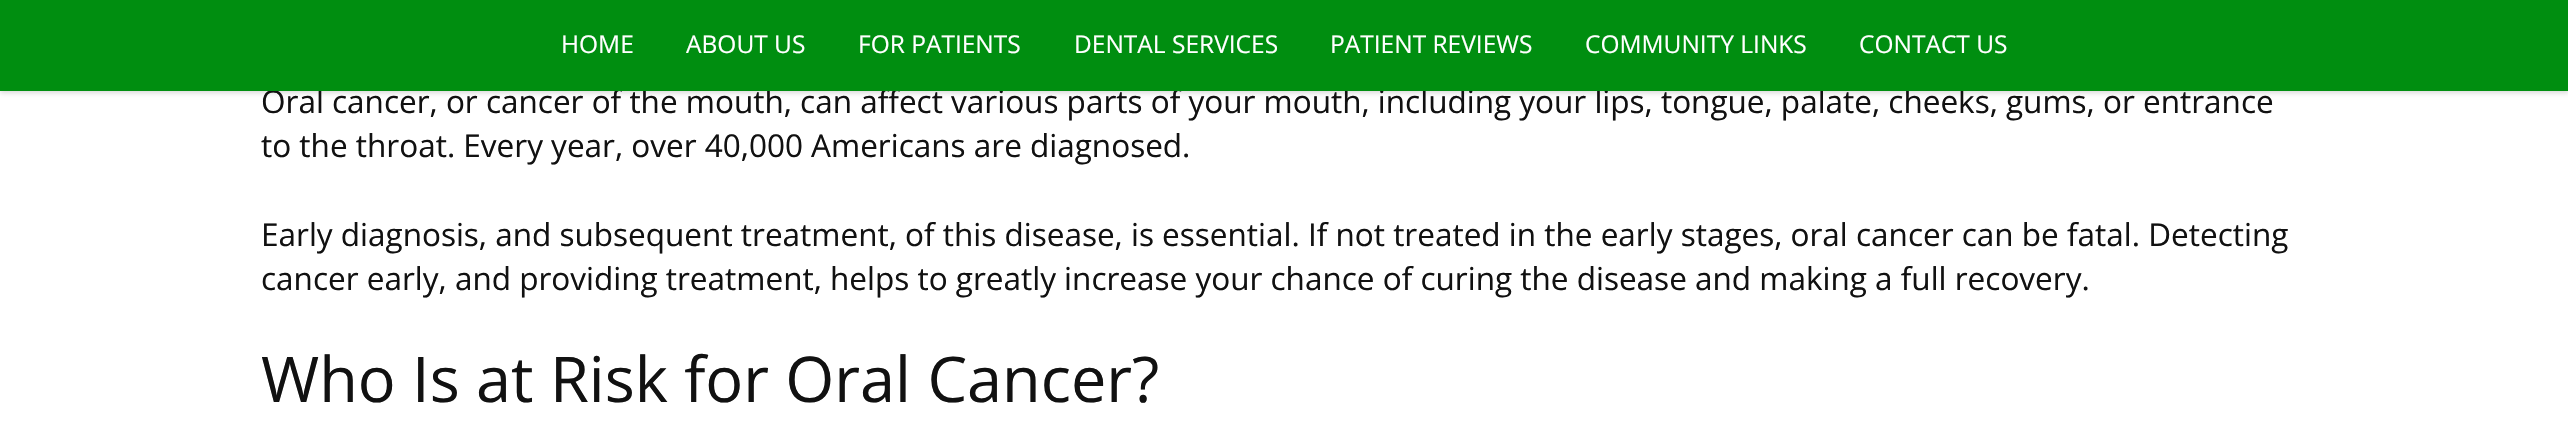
void draw(SkCanvas* c) {
SkPaint p;
p.setAntiAlias(true);
auto F=[&](const char* family, int weight, float size, bool italic = false){SkFontStyle style(weight, SkFontStyle::kNormal_Width,italic ? SkFontStyle::kItalic_Slant : SkFontStyle::kUpright_Slant);SkFont result(fontMgr->matchFamilyStyle(family, style), size);result.setSubpixel(true);return result;};
auto T=[&](const char* s, float x, float y, const SkFont& font){c->drawString(s, x, y, font, p);};
auto R=[&](float x, float y, float w, float h){c->drawRect(SkRect::MakeXYWH(x, y, w, h), p);};
c->clear(0xffffffff);
p.setColor(0x26000000);
p.setMaskFilter(SkMaskFilter::MakeBlur(kNormal_SkBlurStyle, 2.5));
c->drawRect(SkRect::MakeXYWH(0,2,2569,91),p);
p.setMaskFilter(nullptr);
auto f1 = F("Open Sans",400,31.5);
p.setColor(0xff111111);
T("Oral cancer, or cancer of the mouth, can affect various parts of your mouth, including your lips, tongue, palate, cheeks, gums, or entrance",261,113,f1);
p.setColor(0xff008e10);
R(0,0,2568,91);
auto f2 = F("Open Sans",400,24.5);
p.setColor(0xffffffff);
T("HOME",561,53,f2);
T("ABOUT US",686,53,f2);
T("FOR PATIENTS",858,53,f2);
T("DENTAL SERVICES",1074,53,f2);
T("PATIENT REVIEWS",1330,53,f2);
T("COMMUNITY LINKS",1585,53,f2);
T("CONTACT US",1859,53,f2);
p.setColor(0xff111111);
T("to the throat. Every year, over 40,000 Americans are diagnosed.",261,157,f1);
T("Early diagnosis, and subsequent treatment, of this disease, is essential. If not treated in the early stages, oral cancer can be fatal. Detecting",261,246,f1);
T("cancer early, and providing treatment, helps to greatly increase your chance of curing the disease and making a full recovery.",261,290,f1);
auto f3 = F("Open Sans",400,63);
T("Who Is at Risk for Oral Cancer?",261,402,f3);
}
